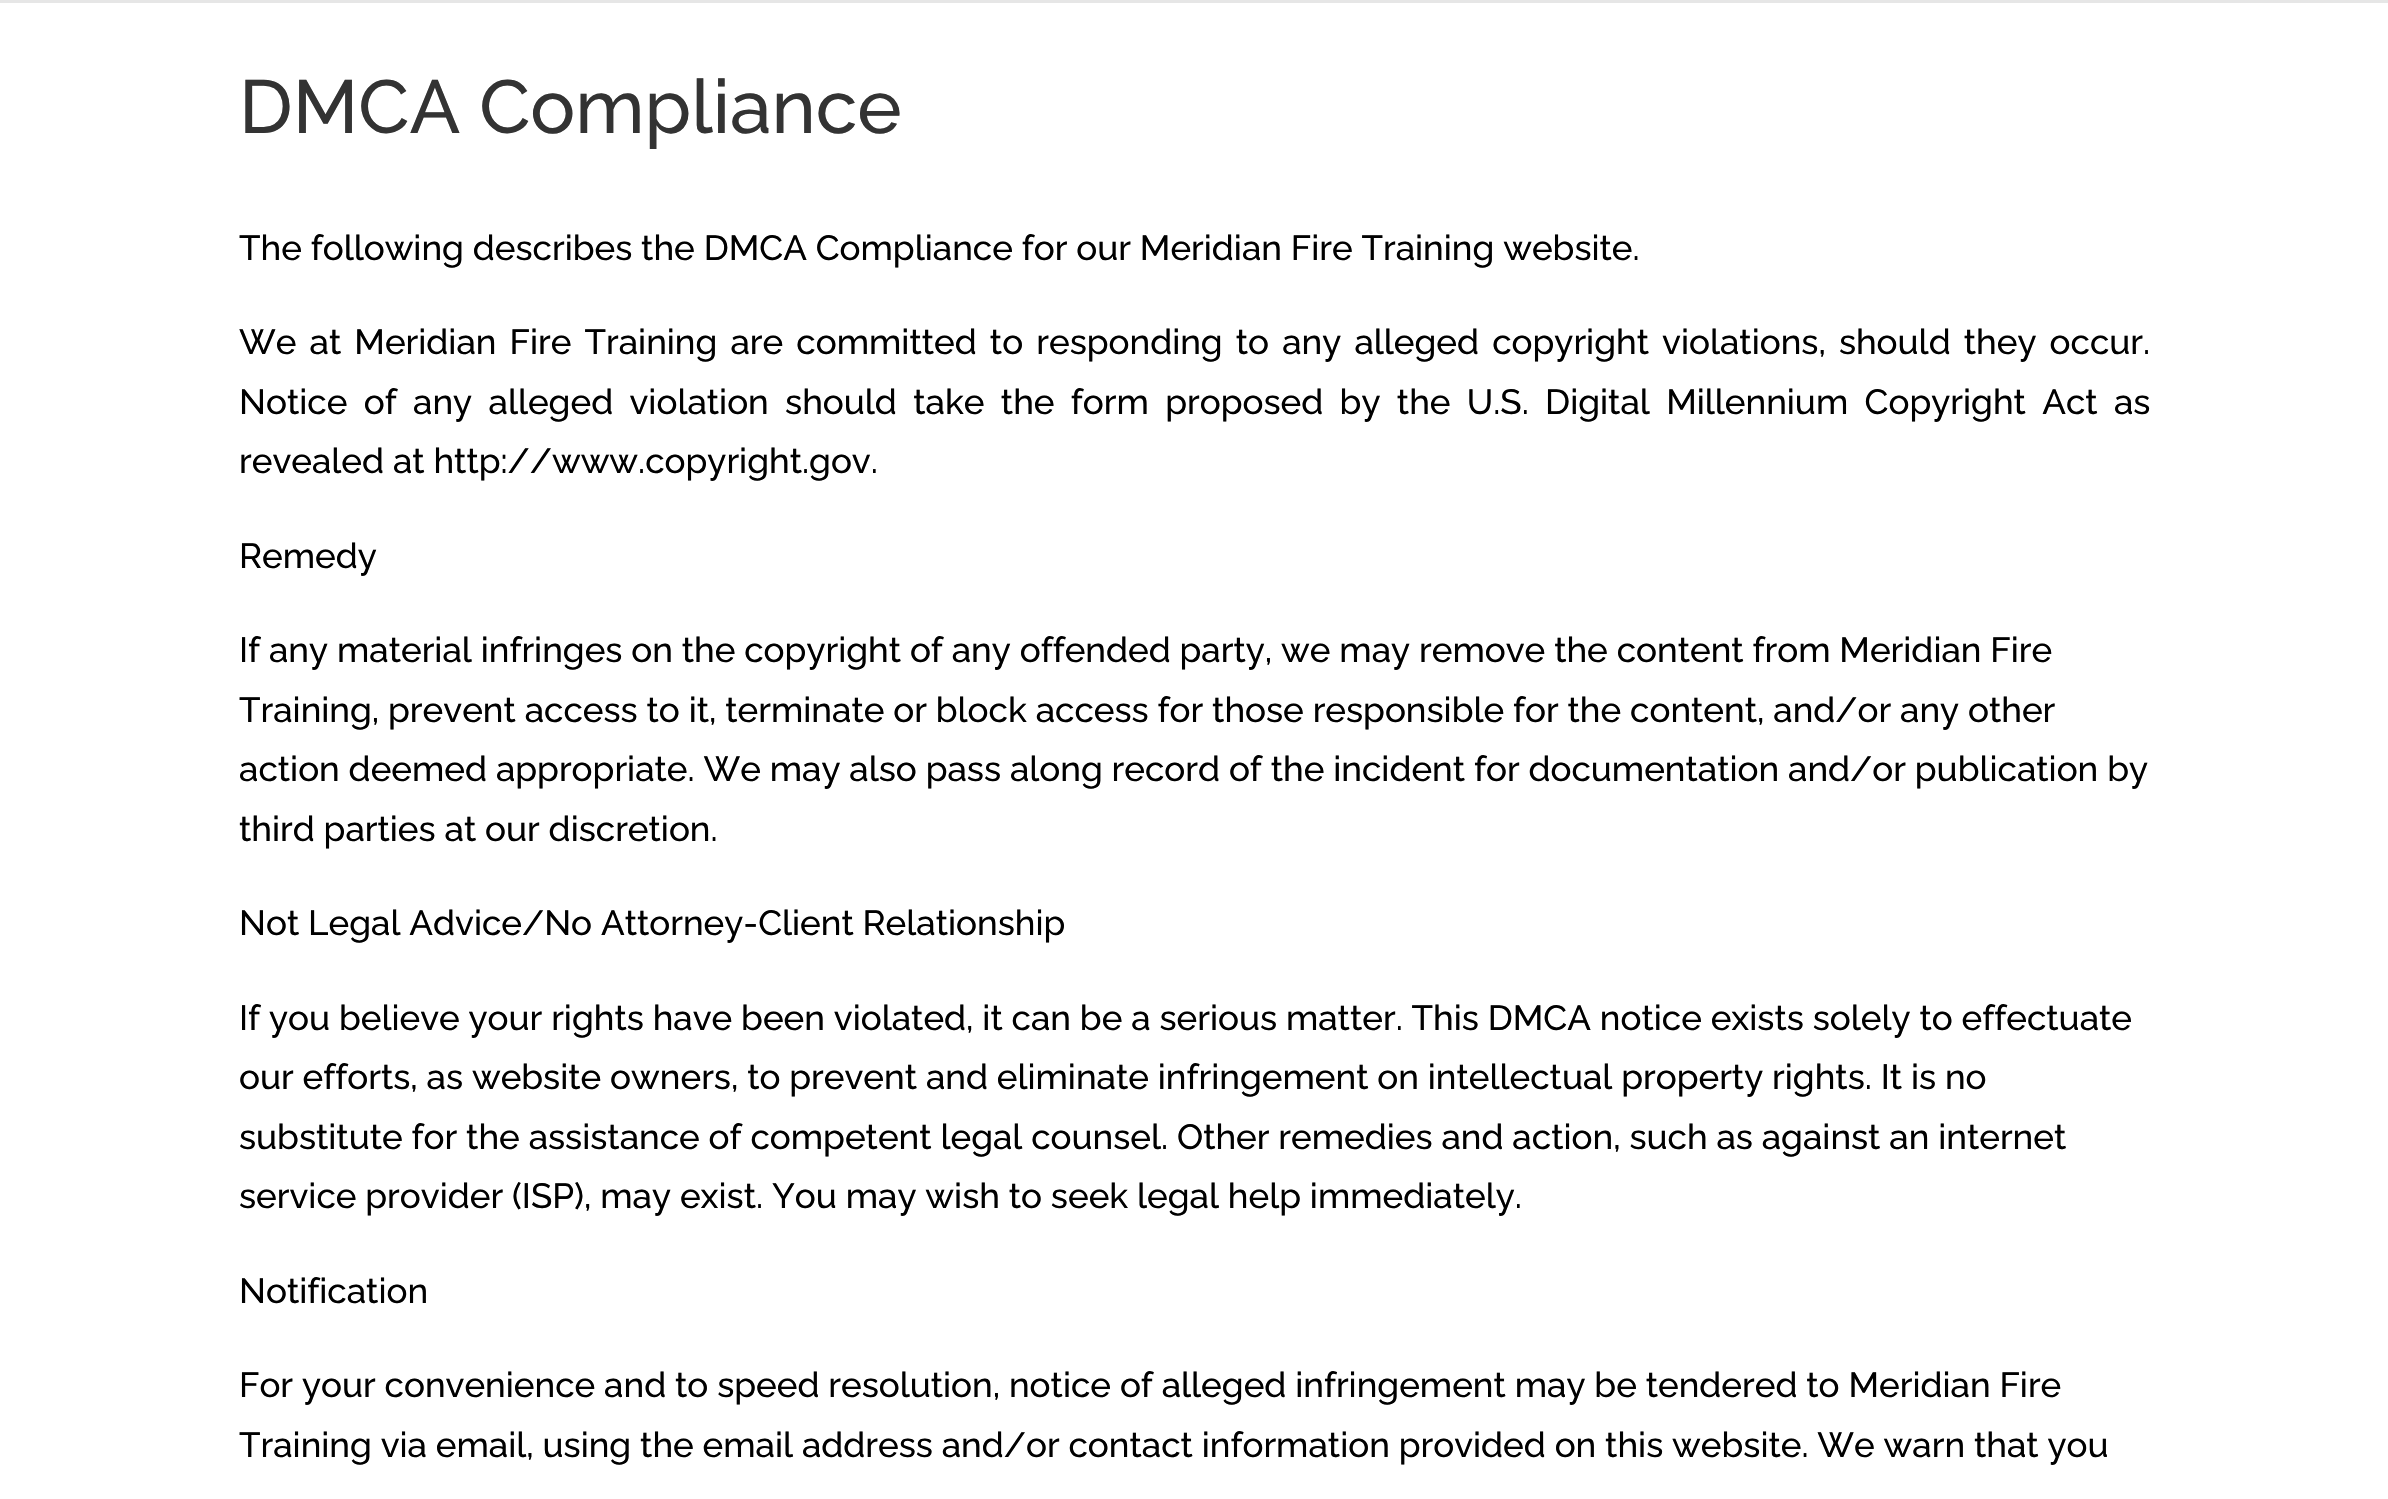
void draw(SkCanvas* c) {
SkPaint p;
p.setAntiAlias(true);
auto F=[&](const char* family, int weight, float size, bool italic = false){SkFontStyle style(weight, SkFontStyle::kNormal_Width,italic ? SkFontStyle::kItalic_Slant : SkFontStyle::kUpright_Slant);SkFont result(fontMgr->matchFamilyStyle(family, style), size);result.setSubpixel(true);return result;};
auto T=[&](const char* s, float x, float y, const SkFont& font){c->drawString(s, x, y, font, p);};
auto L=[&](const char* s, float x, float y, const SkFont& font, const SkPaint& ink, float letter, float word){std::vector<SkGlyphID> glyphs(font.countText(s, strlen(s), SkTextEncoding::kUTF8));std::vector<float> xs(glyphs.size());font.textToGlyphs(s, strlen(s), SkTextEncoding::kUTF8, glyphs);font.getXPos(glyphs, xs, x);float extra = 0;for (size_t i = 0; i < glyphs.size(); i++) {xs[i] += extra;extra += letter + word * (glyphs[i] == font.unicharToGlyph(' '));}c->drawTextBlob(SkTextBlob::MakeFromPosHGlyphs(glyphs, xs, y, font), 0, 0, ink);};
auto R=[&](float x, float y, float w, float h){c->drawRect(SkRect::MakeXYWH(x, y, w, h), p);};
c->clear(0xffffffff);
p.setColor(0xffe6e6e6);
R(0,0,2388,3);
auto f1 = F("Raleway",500,75);
p.setColor(0xff333333);
T("DMCA Compliance",239,133,f1);
auto f2 = F("Raleway",500,35);
p.setColor(0xff000000);
T("The following describes the DMCA Compliance for our Meridian Fire Training website.",239,260,f2);
L("We at Meridian Fire Training are committed to responding to any alleged copyright violations, should they occur.",239,354,f2,p,0,4.25);
L("Notice of any alleged violation should take the form proposed by the U.S. Digital Millennium Copyright Act as",239,414,f2,p,0,7.5);
T("revealed at http://www.copyright.gov.",239,473,f2);
T("Remedy",239,568,f2);
T("If any material infringes on the copyright of any offended party, we may remove the content from Meridian Fire",239,662,f2);
T("Training, prevent access to it, terminate or block access for those responsible for the content, and/or any other",239,722,f2);
T("action deemed appropriate. We may also pass along record of the incident for documentation and/or publication by",239,781,f2);
T("third parties at our discretion.",239,841,f2);
T("Not Legal Advice/No Attorney-Client Relationship",239,935,f2);
T("If you believe your rights have been violated, it can be a serious matter. This DMCA notice exists solely to effectuate",239,1030,f2);
T("our efforts, as website owners, to prevent and eliminate infringement on intellectual property rights. It is no",239,1089,f2);
T("substitute for the assistance of competent legal counsel. Other remedies and action, such as against an internet",239,1149,f2);
T("service provider (ISP), may exist. You may wish to seek legal help immediately.",239,1208,f2);
T("Notification",239,1303,f2);
T("For your convenience and to speed resolution, notice of alleged infringement may be tendered to Meridian Fire",239,1397,f2);
T("Training via email, using the email address and/or contact information provided on this website. We warn that you",239,1457,f2);
}
